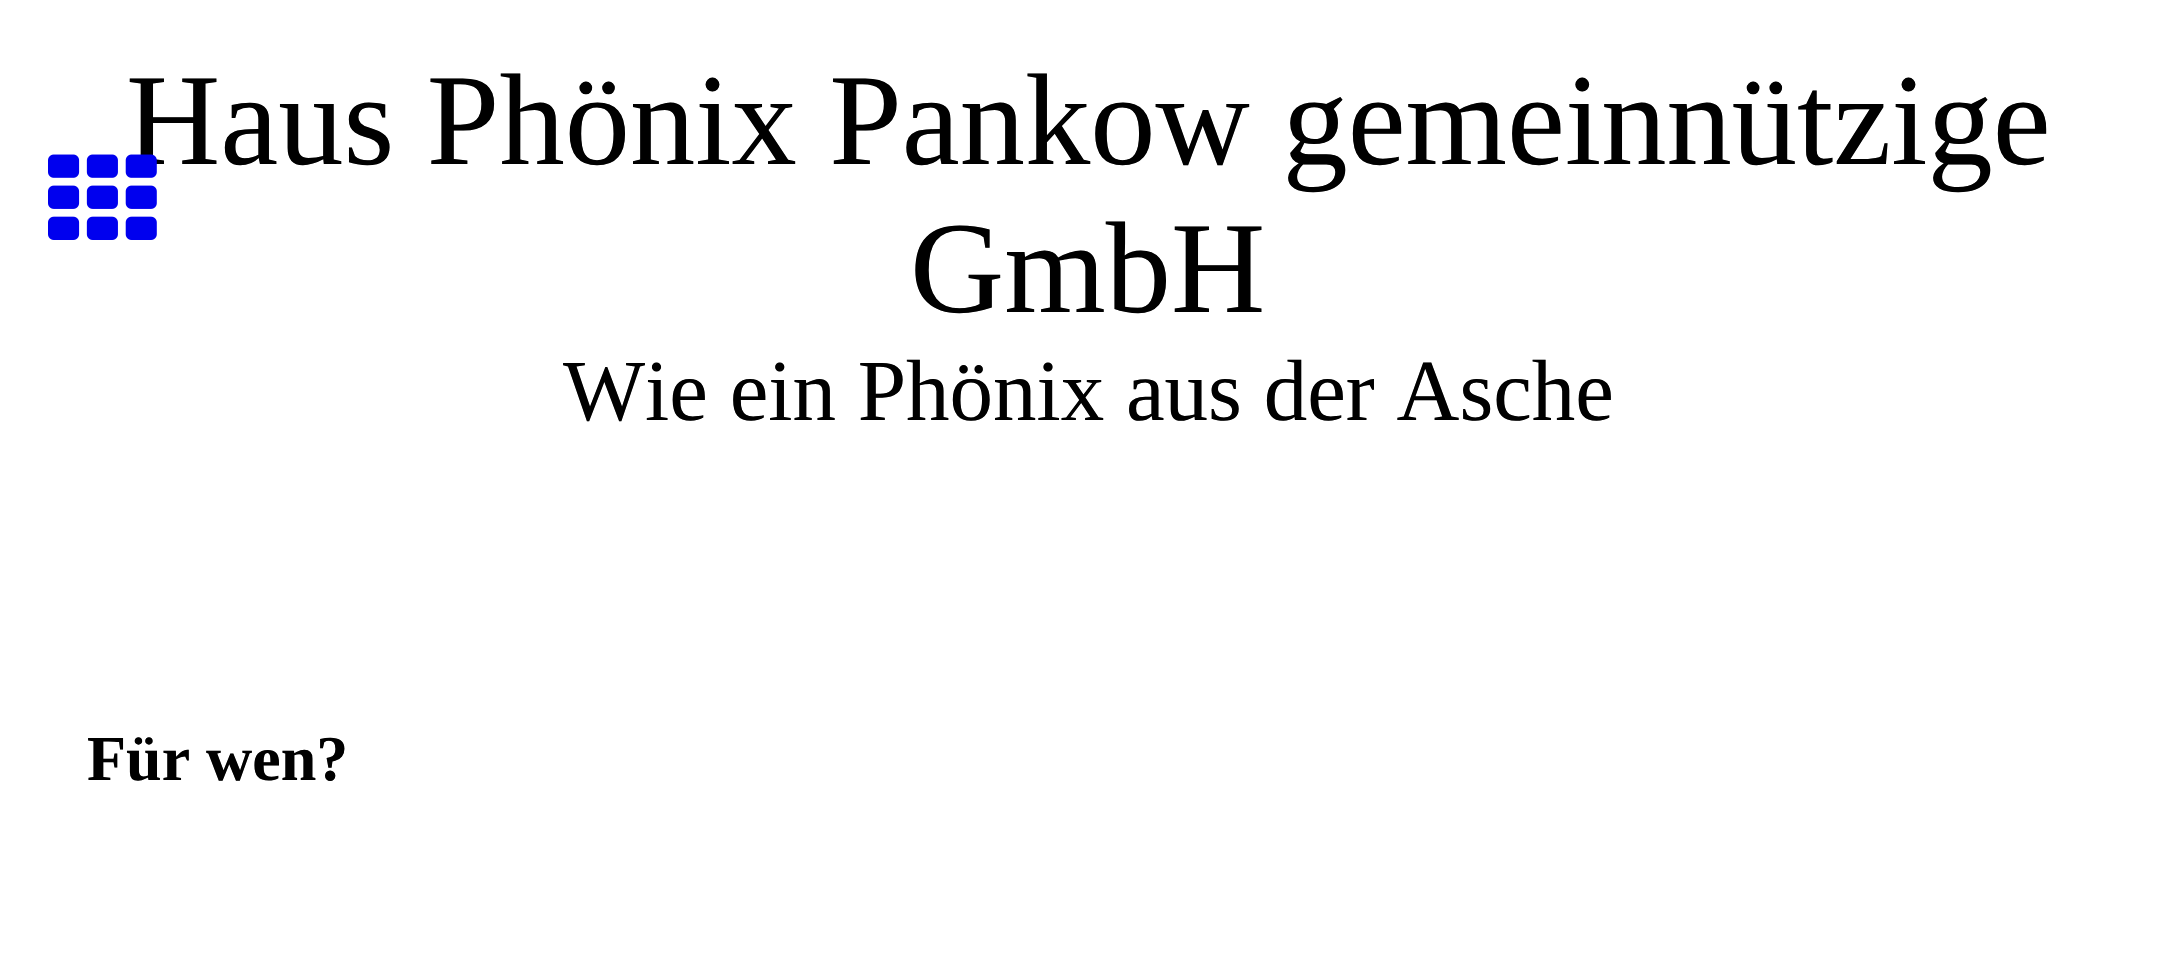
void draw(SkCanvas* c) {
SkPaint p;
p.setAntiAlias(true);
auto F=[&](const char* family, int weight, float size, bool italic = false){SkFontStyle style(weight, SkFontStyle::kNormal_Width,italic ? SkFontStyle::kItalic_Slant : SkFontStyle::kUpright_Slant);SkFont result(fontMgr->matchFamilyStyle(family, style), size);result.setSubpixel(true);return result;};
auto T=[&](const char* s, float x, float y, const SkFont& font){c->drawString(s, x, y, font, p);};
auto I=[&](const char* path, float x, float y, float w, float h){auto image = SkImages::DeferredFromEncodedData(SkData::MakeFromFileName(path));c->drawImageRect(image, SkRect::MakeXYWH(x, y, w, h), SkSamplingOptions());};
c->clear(0xffffffff);
auto f1 = F("Liberation Serif",400,130.5);
p.setColor(0xff000000);
T("Haus Phönix Pankow gemeinnützige",126,164,f1);
I("1.png",48,154,109,86);
T("GmbH",910,312,f1);
auto f2 = F("Liberation Serif",400,87);
T("Wie ein Phönix aus der Asche",563,420,f2);
auto f3 = F("Liberation Serif",700,64);
T("Für wen?",87,780,f3);
}
